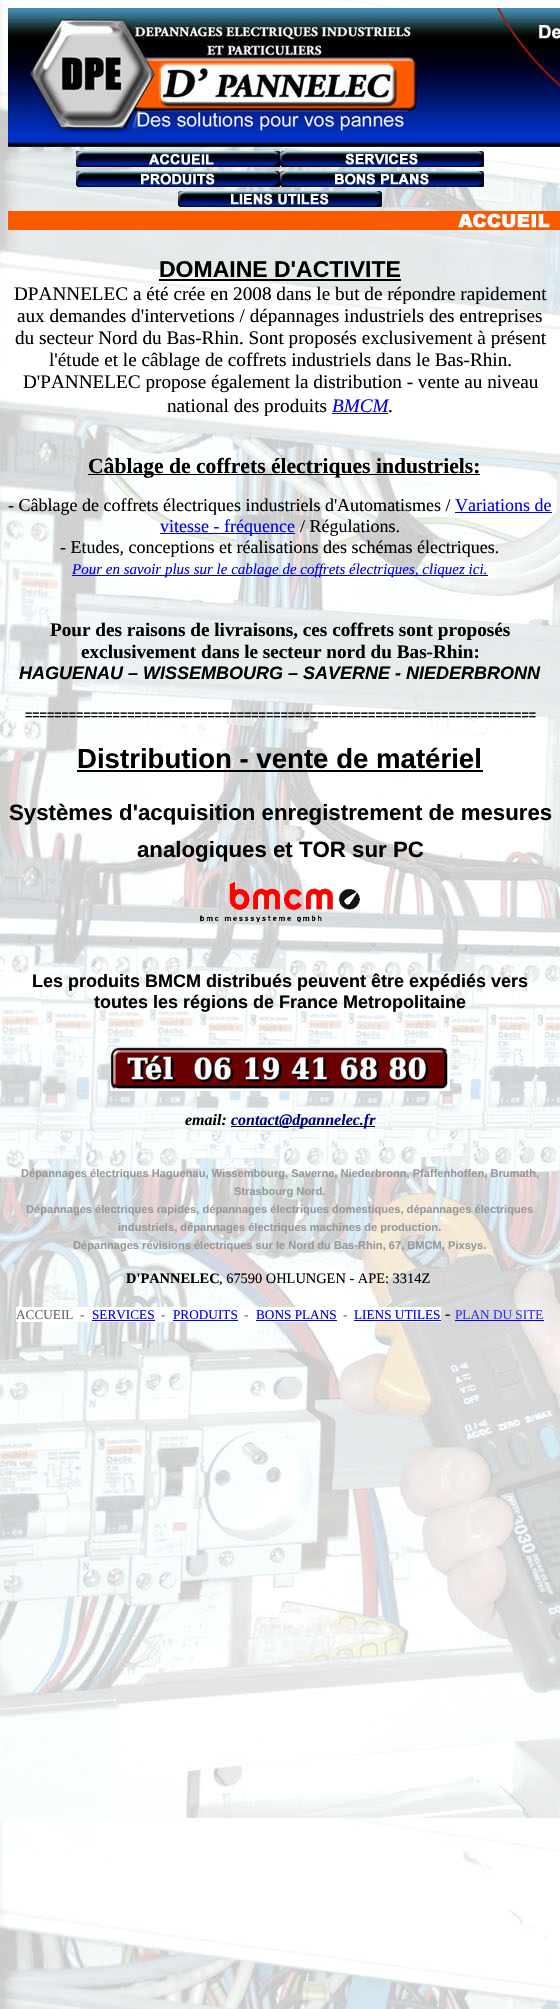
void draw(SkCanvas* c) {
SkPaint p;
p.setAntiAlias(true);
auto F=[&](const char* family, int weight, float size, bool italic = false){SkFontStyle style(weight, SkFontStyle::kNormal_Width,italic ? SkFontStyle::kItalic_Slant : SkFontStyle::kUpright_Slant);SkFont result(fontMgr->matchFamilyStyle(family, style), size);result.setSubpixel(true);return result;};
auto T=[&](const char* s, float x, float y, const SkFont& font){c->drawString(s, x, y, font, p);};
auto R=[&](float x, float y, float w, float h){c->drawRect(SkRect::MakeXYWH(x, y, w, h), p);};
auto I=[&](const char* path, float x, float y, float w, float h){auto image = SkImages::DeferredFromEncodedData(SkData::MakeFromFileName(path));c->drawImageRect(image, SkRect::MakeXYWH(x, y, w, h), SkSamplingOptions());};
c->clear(0xffffffff);
I("1.png",0,0,560,2009);
I("2.png",8,8,552,139);
I("3.png",76,151,204,16);
I("4.png",280,151,204,16);
I("5.png",76,171,204,16);
I("6.png",280,171,204,16);
I("7.png",178,191,204,16);
I("8.png",8,211,552,19);
auto f1 = F("Liberation Sans",700,23);
p.setColor(0xff000000);
T("DOMAINE D'ACTIVITE",159,277,f1);
R(159,279,242,2);
auto f2 = F("Liberation Serif",400,19.2);
T("DPANNELEC a été crée en 2008 dans le but de répondre rapidement",14,300,f2);
T("aux demandes d'intervetions / dépannages industriels des entreprises",17,322,f2);
T("du secteur Nord du Bas-Rhin. Sont proposés exclusivement à présent",15,344,f2);
T("l'étude et le câblage de coffrets industriels dans le Bas-Rhin.",49,366,f2);
T("D'PANNELEC propose également la distribution - vente au niveau",23,388,f2);
T("national des produits",167,412,f2);
auto f3 = F("Liberation Serif",400,19.2,true);
p.setColor(0xff0000ee);
T("BMCM",332,412,f3);
p.setColor(0xff000000);
T(".",388,412,f2);
p.setColor(0xff0000ee);
R(332,413,56,1);
p.setColor(0xff000000);
R(88,474,392,1);
auto f4 = F("Liberation Serif",700,21.6);
T("Câblage de coffrets électriques industriels:",88,473,f4);
auto f5 = F("Liberation Serif",400,18);
T("- Câblage de coffrets électriques industriels d'Automatismes /",8,511,f5);
p.setColor(0xff0000ee);
T("Variations de",455,511,f5);
R(455,512,97,1);
R(160,533,135,1);
T("vitesse - fréquence",160,532,f5);
p.setColor(0xff000000);
T("/ Régulations.",300,532,f5);
T("- Etudes, conceptions et réalisations des schémas électriques.",60,553,f5);
p.setColor(0xff0000ee);
R(72,575,416,1);
auto f6 = F("Liberation Serif",400,15,true);
T("Pour en savoir plus sur le cablage de coffrets électriques, cliquez ici.",72,574,f6);
auto f7 = F("Liberation Serif",700,19.2);
p.setColor(0xff000000);
T("Pour des raisons de livraisons, ces coffrets sont proposés",50,636,f7);
T("exclusivement dans le secteur nord du Bas-Rhin:",81,658,f7);
auto f8 = F("Liberation Sans",700,18,true);
T("HAGUENAU – WISSEMBOURG – SAVERNE - NIEDERBRONN",19,679,f8);
auto f9 = F("Liberation Sans",700,12.5);
T("======================================================================",25,719,f9);
auto f10 = F("Liberation Sans",700,27.6);
T("Distribution - vente de matériel",77,768,f10);
R(77,770,406,2);
auto f11 = F("Liberation Sans",700,22.25);
T("Systèmes d'acquisition enregistrement de mesures",9,820,f11);
T("analogiques et TOR sur PC",137,857,f11);
I("9.png",200,881,160,42);
auto f12 = F("Liberation Sans",700,18);
T("Les produits BMCM distribués peuvent être expédiés vers",32,987,f12);
T("toutes les régions de France Metropolitaine",94,1008,f12);
I("10.png",110,1047,340,44);
auto f13 = F("Liberation Serif",700,16,true);
T("email:",185,1125,f13);
R(231,1126,144,1);
p.setColor(0xff000080);
T("contact@dpannelec.fr",231,1125,f13);
auto f14 = F("Liberation Sans",700,11.1);
p.setColor(0xff979899);
T("Dépannages électriques Haguenau, Wissembourg, Saverne, Niederbronn, Pfaffenhoffen, Brumath,",21,1177,f14);
T("Strasbourg Nord.",234,1195,f14);
T("Dépannages électriques rapides, dépannages électriques domestiques, dépannages électriques",26,1213,f14);
T("industriels, dépannages électriques machines de production.",118,1231,f14);
T("Dépannages révisions électriques sur le Nord du Bas-Rhin, 67, BMCM, Pixsys.",73,1249,f14);
auto f15 = F("Liberation Serif",700,14.4);
p.setColor(0xff000000);
T("D'PANNELEC",126,1283,f15);
auto f16 = F("Liberation Serif",400,14.4);
T(", 67590 OHLUNGEN - APE: 3314Z",219,1283,f16);
p.setColor(0xffffffff);
R(16,1307,296,15);
auto f17 = F("Liberation Serif",400,13.25);
p.setColor(0xff666666);
T("ACCUEIL  -",16,1319,f17);
p.setColor(0xff0000ee);
T("SERVICES",92,1319,f17);
R(92,1320,63,1);
p.setColor(0xff666666);
T("-",161,1319,f17);
p.setColor(0xff0000ee);
T("PRODUITS",173,1319,f17);
R(173,1320,65,1);
p.setColor(0xff666666);
T("-",244,1319,f17);
p.setColor(0xff0000ee);
T("BONS PLANS",256,1319,f17);
R(256,1320,81,1);
p.setColor(0xff666666);
T("-",343,1319,f17);
p.setColor(0xffffffff);
R(369,1307,72,15);
p.setColor(0xff0000ee);
T("LIENS UTILES",354,1319,f17);
R(354,1320,87,1);
auto f18 = F("Liberation Serif",400,16);
p.setColor(0xff000000);
T("-",445,1319,f18);
p.setColor(0xff3333ff);
T("PLAN DU SITE",455,1319,f17);
p.setColor(0xff0000ee);
R(455,1320,89,1);
}
